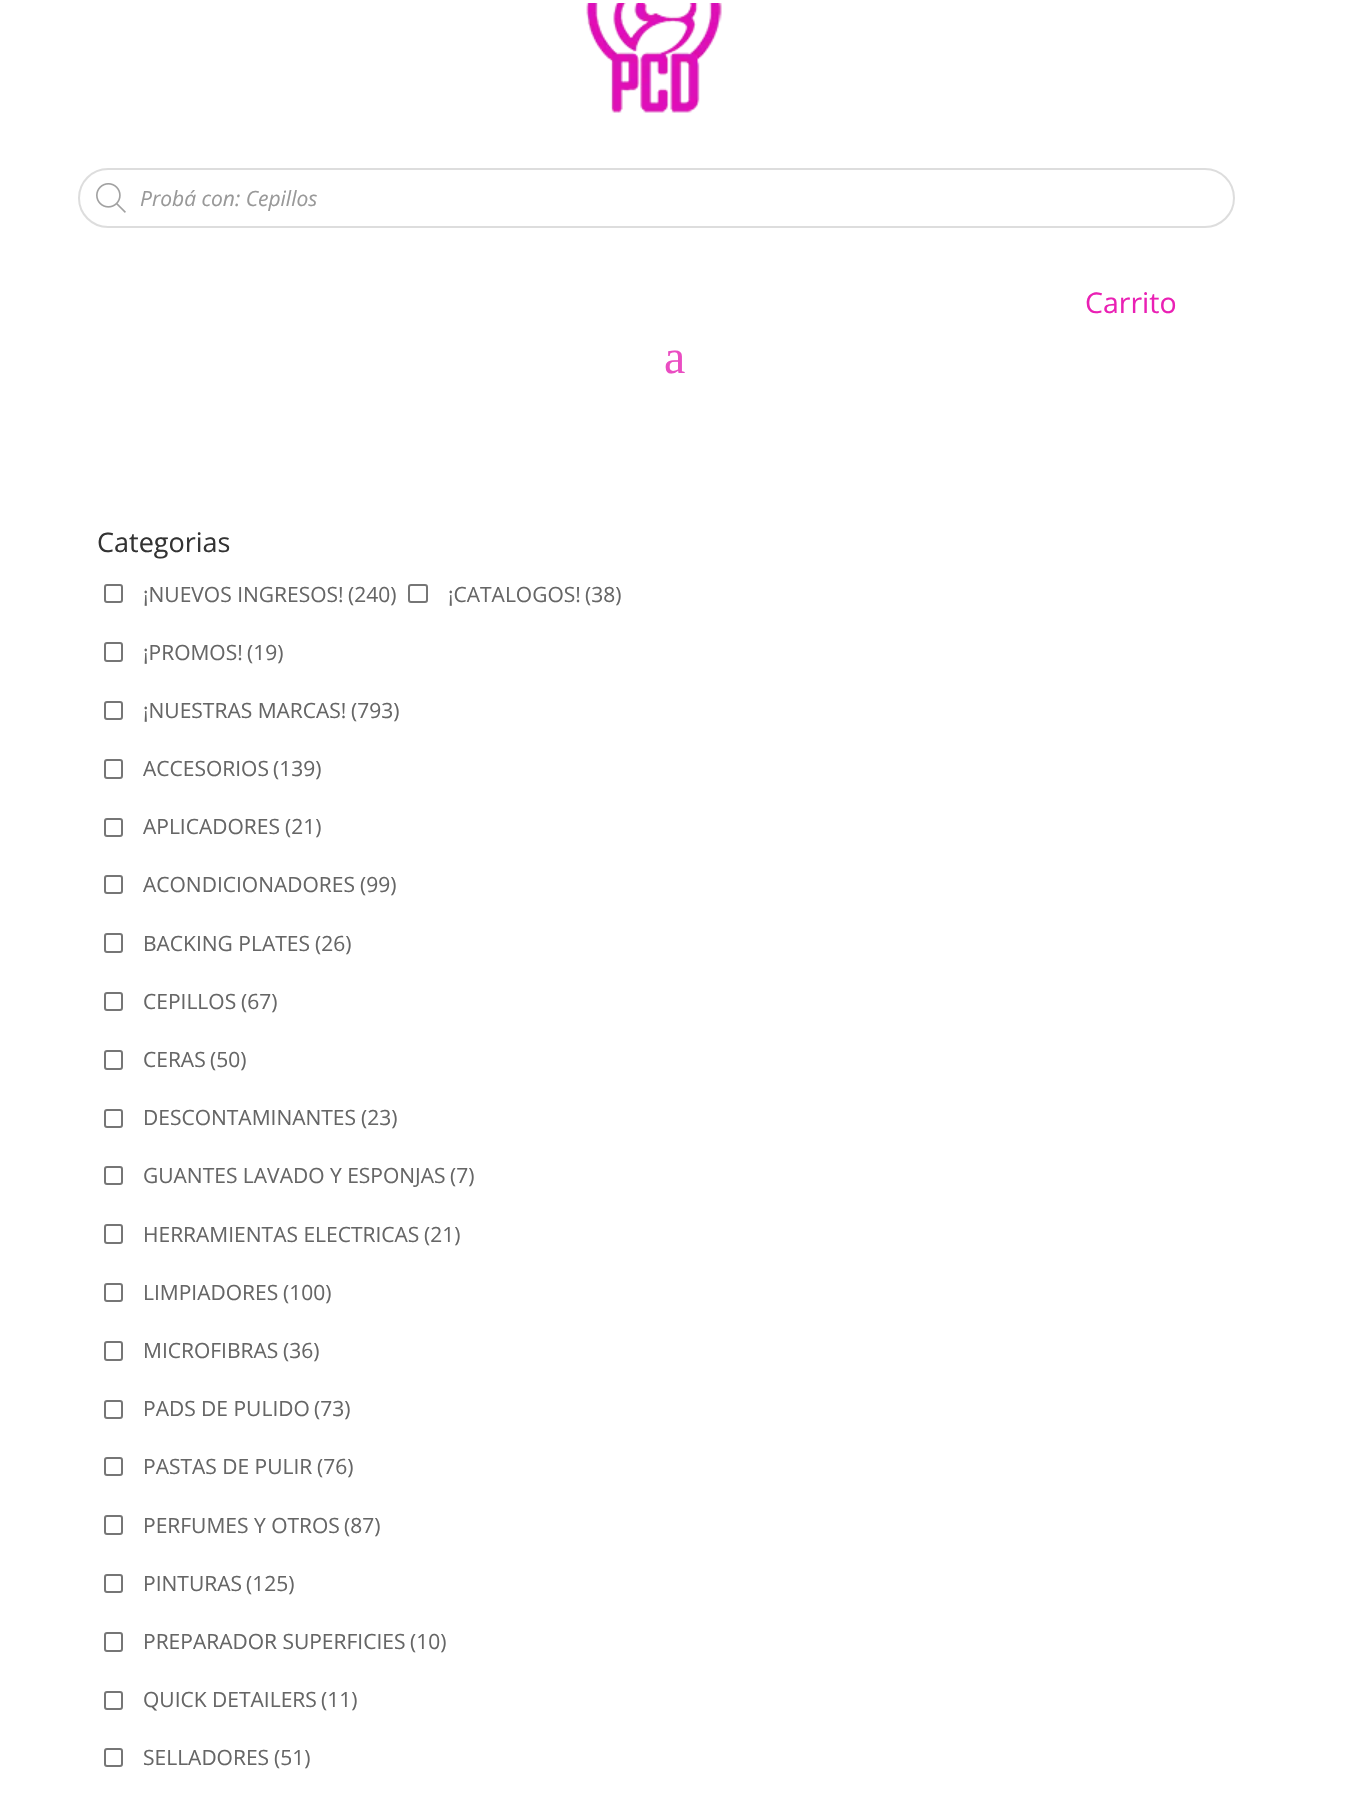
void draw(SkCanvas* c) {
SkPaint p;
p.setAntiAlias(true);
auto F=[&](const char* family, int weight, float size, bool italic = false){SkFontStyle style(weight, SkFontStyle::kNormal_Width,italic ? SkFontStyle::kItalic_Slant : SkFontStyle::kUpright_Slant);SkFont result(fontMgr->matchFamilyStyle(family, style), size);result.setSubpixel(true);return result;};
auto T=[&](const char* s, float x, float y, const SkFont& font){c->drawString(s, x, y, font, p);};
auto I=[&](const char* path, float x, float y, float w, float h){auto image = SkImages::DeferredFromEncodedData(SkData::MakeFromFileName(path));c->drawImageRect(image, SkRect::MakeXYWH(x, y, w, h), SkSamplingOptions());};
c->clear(0xffffffff);
I("1.png",586,3,136,110);
p.setStroke(true);
p.setStrokeWidth(2);
p.setColor(0xffdddddd);
c->drawRoundRect(SkRect::MakeXYWH(79,169,1155,58),29,29,p);
I("2.png",96,183,30,30);
auto f1 = F("Open Sans",400,21,true);
p.setStroke(false);
p.setColor(0xff999999);
T("Probá con: Cepillos",140,206,f1);
auto f2 = F("Open Sans",400,28.5);
p.setColor(0xffea20b4);
T("Carrito",1085,313,f2);
auto f3 = F("Liberation Serif",400,48);
p.setColor(0xffea4dc2);
T("a",664,373,f3);
auto f4 = F("Open Sans",400,27);
p.setColor(0xff333333);
T("Categorias",97,552,f4);
p.setStroke(true);
p.setColor(0xff767676);
c->drawRoundRect(SkRect::MakeXYWH(105,585,17,17),2,2,p);
auto f5 = F("Open Sans",400,21);
p.setStroke(false);
p.setColor(0xff666666);
T("¡NUEVOS INGRESOS!",143,602,f5);
T("(240)",348,602,f5);
p.setStroke(true);
p.setColor(0xff767676);
c->drawRoundRect(SkRect::MakeXYWH(409,585,18,17),2,2,p);
p.setStroke(false);
p.setColor(0xff666666);
T("¡CATALOGOS!",448,602,f5);
T("(38)",585,602,f5);
p.setStroke(true);
p.setColor(0xff767676);
c->drawRoundRect(SkRect::MakeXYWH(105,643,17,18),2,2,p);
p.setStroke(false);
p.setColor(0xff666666);
T("¡PROMOS!",143,660,f5);
T("(19)",247,660,f5);
p.setStroke(true);
p.setColor(0xff767676);
c->drawRoundRect(SkRect::MakeXYWH(105,702,17,17),2,2,p);
p.setStroke(false);
p.setColor(0xff666666);
T("¡NUESTRAS MARCAS!",143,718,f5);
T("(793)",351,718,f5);
p.setStroke(true);
p.setColor(0xff767676);
c->drawRoundRect(SkRect::MakeXYWH(105,760,17,18),2,2,p);
p.setStroke(false);
p.setColor(0xff666666);
T("ACCESORIOS",143,776,f5);
T("(139)",273,776,f5);
p.setStroke(true);
p.setColor(0xff767676);
c->drawRoundRect(SkRect::MakeXYWH(105,819,17,17),2,2,p);
p.setStroke(false);
p.setColor(0xff666666);
T("APLICADORES",143,834,f5);
T("(21)",285,834,f5);
p.setStroke(true);
p.setColor(0xff767676);
c->drawRoundRect(SkRect::MakeXYWH(105,876,17,17),2,2,p);
p.setStroke(false);
p.setColor(0xff666666);
T("ACONDICIONADORES",143,892,f5);
T("(99)",360,892,f5);
p.setStroke(true);
p.setColor(0xff767676);
c->drawRoundRect(SkRect::MakeXYWH(105,934,17,18),2,2,p);
p.setStroke(false);
p.setColor(0xff666666);
T("BACKING PLATES",143,951,f5);
T("(26)",315,951,f5);
p.setStroke(true);
p.setColor(0xff767676);
c->drawRoundRect(SkRect::MakeXYWH(105,993,17,17),2,2,p);
p.setStroke(false);
p.setColor(0xff666666);
T("CEPILLOS",143,1009,f5);
T("(67)",241,1009,f5);
p.setStroke(true);
p.setColor(0xff767676);
c->drawRoundRect(SkRect::MakeXYWH(105,1051,17,18),2,2,p);
p.setStroke(false);
p.setColor(0xff666666);
T("CERAS",143,1067,f5);
T("(50)",210,1067,f5);
p.setStroke(true);
p.setColor(0xff767676);
c->drawRoundRect(SkRect::MakeXYWH(105,1110,17,17),2,2,p);
p.setStroke(false);
p.setColor(0xff666666);
T("DESCONTAMINANTES",143,1125,f5);
T("(23)",361,1125,f5);
p.setStroke(true);
p.setColor(0xff767676);
c->drawRoundRect(SkRect::MakeXYWH(105,1167,17,17),2,2,p);
p.setStroke(false);
p.setColor(0xff666666);
T("GUANTES LAVADO Y ESPONJAS",143,1183,f5);
T("(7)",450,1183,f5);
p.setStroke(true);
p.setColor(0xff767676);
c->drawRoundRect(SkRect::MakeXYWH(105,1225,17,18),2,2,p);
p.setStroke(false);
p.setColor(0xff666666);
T("HERRAMIENTAS ELECTRICAS",143,1242,f5);
T("(21)",424,1242,f5);
p.setStroke(true);
p.setColor(0xff767676);
c->drawRoundRect(SkRect::MakeXYWH(105,1284,17,17),2,2,p);
p.setStroke(false);
p.setColor(0xff666666);
T("LIMPIADORES",143,1300,f5);
T("(100)",283,1300,f5);
p.setStroke(true);
p.setColor(0xff767676);
c->drawRoundRect(SkRect::MakeXYWH(105,1342,17,18),2,2,p);
p.setStroke(false);
p.setColor(0xff666666);
T("MICROFIBRAS",143,1358,f5);
T("(36)",283,1358,f5);
p.setStroke(true);
p.setColor(0xff767676);
c->drawRoundRect(SkRect::MakeXYWH(105,1401,17,17),2,2,p);
p.setStroke(false);
p.setColor(0xff666666);
T("PADS DE PULIDO",143,1416,f5);
T("(73)",314,1416,f5);
p.setStroke(true);
p.setColor(0xff767676);
c->drawRoundRect(SkRect::MakeXYWH(105,1458,17,17),2,2,p);
p.setStroke(false);
p.setColor(0xff666666);
T("PASTAS DE PULIR",143,1474,f5);
T("(76)",317,1474,f5);
p.setStroke(true);
p.setColor(0xff767676);
c->drawRoundRect(SkRect::MakeXYWH(105,1516,17,18),2,2,p);
p.setStroke(false);
p.setColor(0xff666666);
T("PERFUMES Y OTROS",143,1533,f5);
T("(87)",344,1533,f5);
p.setStroke(true);
p.setColor(0xff767676);
c->drawRoundRect(SkRect::MakeXYWH(105,1575,17,17),2,2,p);
p.setStroke(false);
p.setColor(0xff666666);
T("PINTURAS",143,1591,f5);
T("(125)",246,1591,f5);
p.setStroke(true);
p.setColor(0xff767676);
c->drawRoundRect(SkRect::MakeXYWH(105,1633,17,18),2,2,p);
p.setStroke(false);
p.setColor(0xff666666);
T("PREPARADOR SUPERFICIES",143,1649,f5);
T("(10)",410,1649,f5);
p.setStroke(true);
p.setColor(0xff767676);
c->drawRoundRect(SkRect::MakeXYWH(105,1692,17,17),2,2,p);
p.setStroke(false);
p.setColor(0xff666666);
T("QUICK DETAILERS",143,1707,f5);
T("(11)",321,1707,f5);
p.setStroke(true);
p.setColor(0xff767676);
c->drawRoundRect(SkRect::MakeXYWH(105,1749,17,17),2,2,p);
p.setStroke(false);
p.setColor(0xff666666);
T("SELLADORES",143,1765,f5);
T("(51)",274,1765,f5);
}
